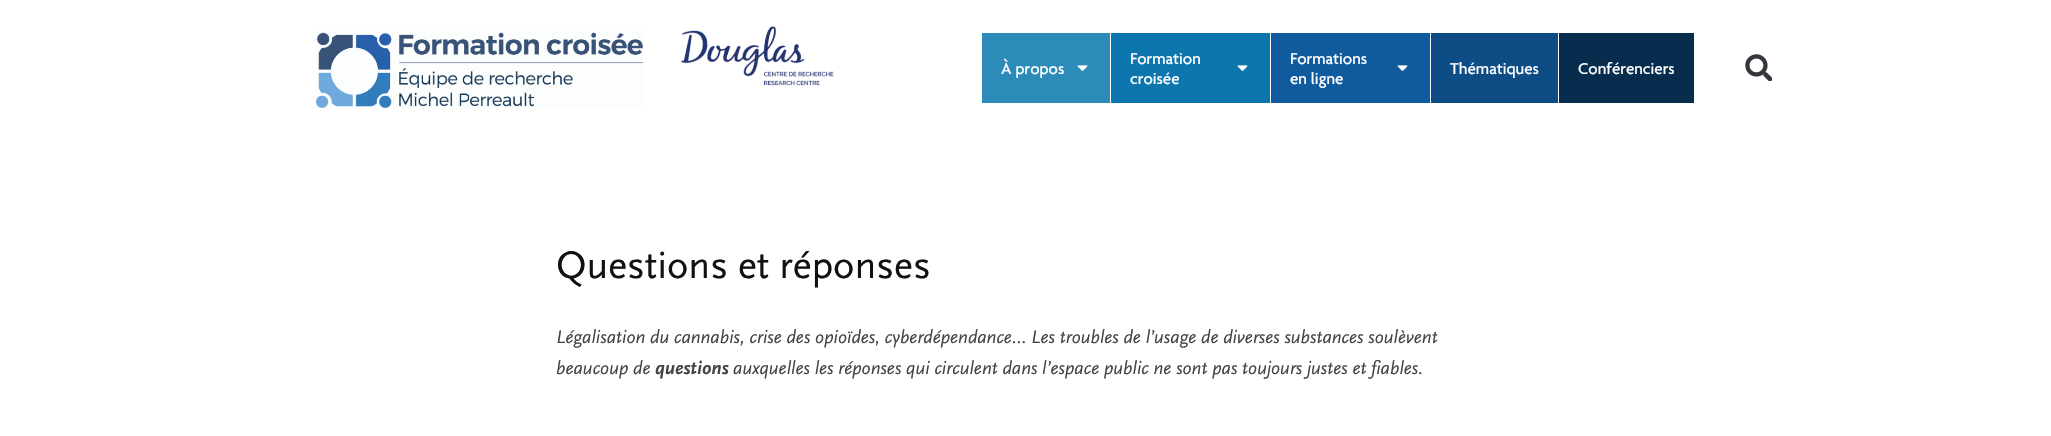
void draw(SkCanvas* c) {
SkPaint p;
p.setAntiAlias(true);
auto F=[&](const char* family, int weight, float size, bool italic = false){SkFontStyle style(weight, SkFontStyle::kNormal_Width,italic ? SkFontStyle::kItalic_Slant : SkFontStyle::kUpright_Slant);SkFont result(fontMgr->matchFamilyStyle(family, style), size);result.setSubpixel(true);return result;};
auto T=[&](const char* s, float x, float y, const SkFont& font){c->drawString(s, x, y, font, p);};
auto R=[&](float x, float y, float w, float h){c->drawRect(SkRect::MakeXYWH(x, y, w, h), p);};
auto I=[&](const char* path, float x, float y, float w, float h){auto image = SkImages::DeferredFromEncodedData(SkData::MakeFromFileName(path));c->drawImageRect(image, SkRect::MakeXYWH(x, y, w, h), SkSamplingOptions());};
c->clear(0xffffffff);
I("1.png",316,26,518,83);
p.setColor(0xff2d8bba);
R(982,33,128,70);
auto f1 = F("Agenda",500,17);
p.setColor(0xffffffff);
T("À propos",1001,74,f1);
I("2.png",1077,65,11,6);
p.setColor(0xff0d76ae);
R(1111,33,159,70);
p.setColor(0xffffffff);
T("Formation",1130,64,f1);
I("3.png",1237,65,11,6);
T("croisée",1130,84,f1);
p.setColor(0xff0f5b9e);
R(1271,33,159,70);
p.setColor(0xffffffff);
T("Formations",1290,64,f1);
I("4.png",1397,65,11,6);
T("en ligne",1290,84,f1);
p.setColor(0xff0d4c85);
R(1431,33,127,70);
p.setColor(0xffffffff);
T("Thématiques",1450,74,f1);
p.setColor(0xff082c4e);
R(1559,33,135,70);
p.setColor(0xffffffff);
T("Conférenciers",1578,74,f1);
I("5.png",1745,54,27,27);
auto f2 = F("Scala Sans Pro",400,40);
p.setColor(0xff111111);
T("Questions et réponses",556,278,f2);
auto f3 = F("Scala Sans Pro",400,19,true);
p.setColor(0xff444444);
T("Légalisation du cannabis, crise des opioïdes, cyberdépendance… Les troubles de l’usage de diverses substances soulèvent",556,343,f3);
T("beaucoup de",556,374,f3);
auto f4 = F("Scala Sans Pro",700,19,true);
T("questions",655,374,f4);
T("auxquelles les réponses qui circulent dans l’espace public ne sont pas toujours justes et fiables.",733,374,f3);
}
